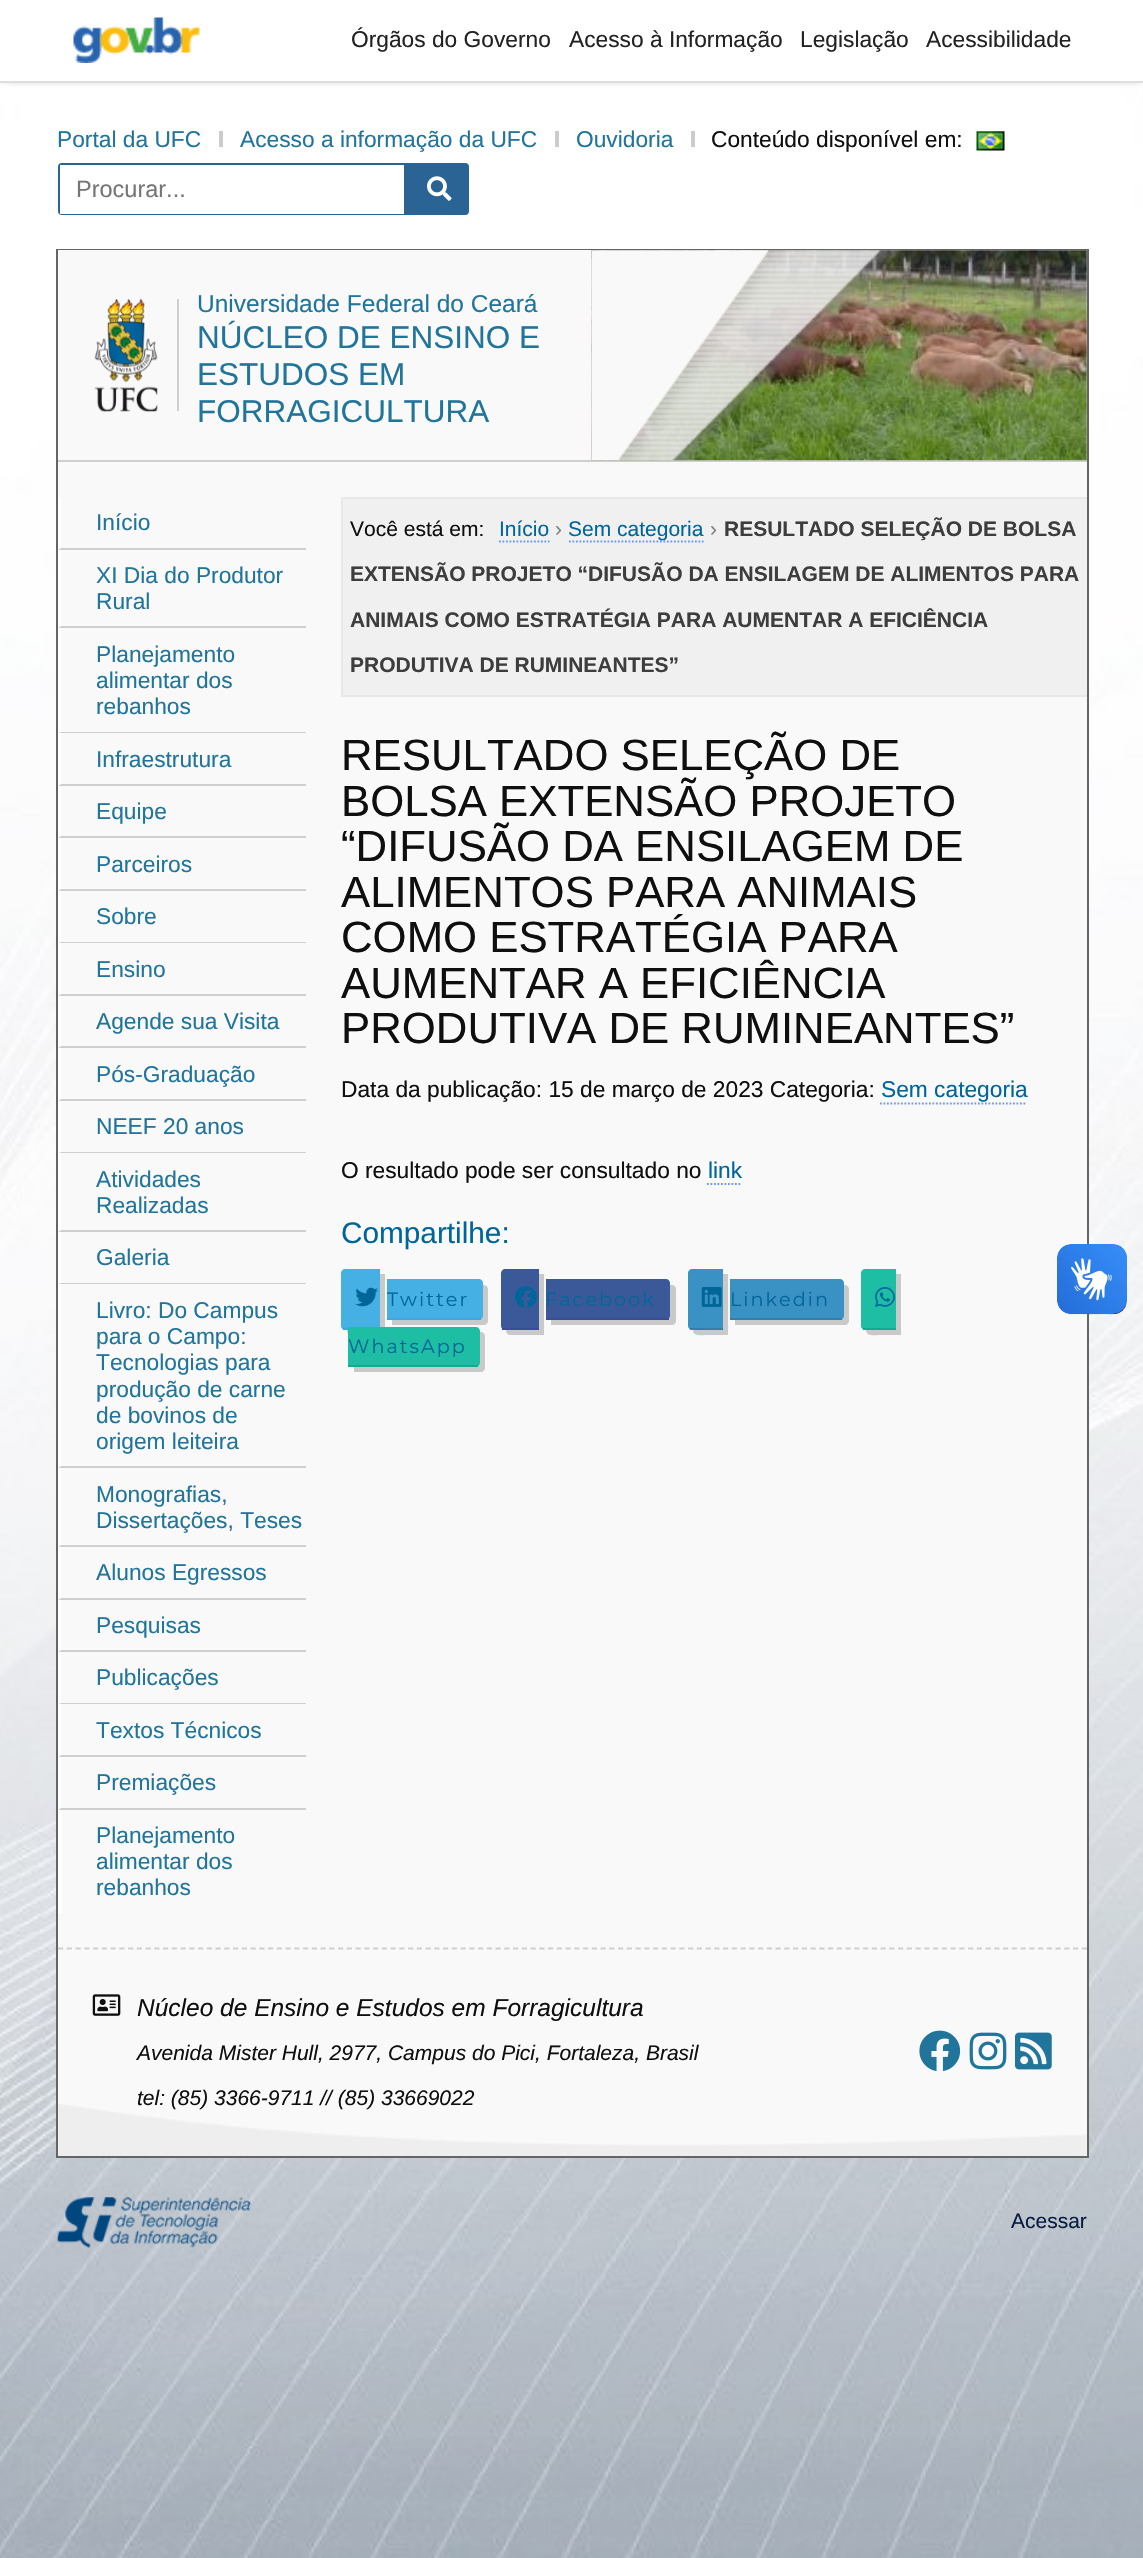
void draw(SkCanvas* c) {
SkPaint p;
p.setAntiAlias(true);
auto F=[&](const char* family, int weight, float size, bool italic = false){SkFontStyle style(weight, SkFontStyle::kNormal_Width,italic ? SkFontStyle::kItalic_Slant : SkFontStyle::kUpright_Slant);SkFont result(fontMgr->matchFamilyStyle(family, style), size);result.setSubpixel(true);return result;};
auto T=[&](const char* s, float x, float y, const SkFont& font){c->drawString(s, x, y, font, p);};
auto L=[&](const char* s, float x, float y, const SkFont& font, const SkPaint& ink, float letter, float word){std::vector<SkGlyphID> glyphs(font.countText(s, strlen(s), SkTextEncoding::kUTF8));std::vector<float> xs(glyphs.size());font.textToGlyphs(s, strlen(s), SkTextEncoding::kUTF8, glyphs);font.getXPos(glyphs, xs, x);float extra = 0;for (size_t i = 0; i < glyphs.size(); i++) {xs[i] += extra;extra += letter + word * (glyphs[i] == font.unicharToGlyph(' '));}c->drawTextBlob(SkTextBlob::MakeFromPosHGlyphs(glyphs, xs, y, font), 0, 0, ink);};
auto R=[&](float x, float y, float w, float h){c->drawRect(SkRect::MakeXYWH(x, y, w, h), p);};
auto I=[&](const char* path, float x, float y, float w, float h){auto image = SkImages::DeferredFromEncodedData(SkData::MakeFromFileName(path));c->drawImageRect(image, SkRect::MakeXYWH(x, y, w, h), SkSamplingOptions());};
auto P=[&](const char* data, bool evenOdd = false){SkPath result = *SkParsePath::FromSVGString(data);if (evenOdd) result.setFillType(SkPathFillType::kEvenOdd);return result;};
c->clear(0xffffffff);
I("1.png",0,83,1143,2475);
p.setColor(0xff333333);
p.setMaskFilter(SkMaskFilter::MakeBlur(kNormal_SkBlurStyle, 4.5));
c->drawRect(SkRect::MakeXYWH(5,5,1134,72),p);
p.setMaskFilter(nullptr);
p.setColor(0xffffffff);
R(0,0,1143,81);
p.setColor(0xffdfdfdf);
R(0,81,1143,2);
I("2.png",73,17,127,46);
auto f1 = F("Liberation Sans",400,22.75);
p.setColor(0xff232323);
T("Órgãos do Governo",351,47,f1);
T("Acesso à Informação",569,47,f1);
T("Legislação",800,47,f1);
T("Acessibilidade",926,47,f1);
p.setColor(0xff21759b);
T("Portal da UFC",57,147,f1);
p.setColor(0xffcccccc);
R(219,131,4,16);
p.setColor(0xff21759b);
T("Acesso a informação da UFC",240,147,f1);
p.setColor(0xffcccccc);
R(555,131,4,16);
p.setColor(0xff21759b);
T("Ouvidoria",576,147,f1);
p.setColor(0xffcccccc);
R(691,131,4,16);
p.setColor(0xff0f0f0f);
T("Conteúdo disponível em:",711,147,f1);
I("3.png",976,131,29,20);
p.setStroke(true);
p.setStrokeWidth(2);
p.setColor(0xff296494);
c->drawRoundRect(SkRect::MakeXYWH(59,164,409,50),3,3,p);
p.setStroke(false);
R(404,165,63,48);
p.setColor(0xffffffff);
R(60,165,344,49);
auto f2 = F("Liberation Sans",400,23.5);
p.setColor(0xff757575);
T("Procurar...",76,197,f2);
I("4.png",427,176,25,25);
p.setStroke(true);
p.setColor(0xff656565);
c->drawRect(SkRect::MakeXYWH(57,250,1031,1907),p);
p.setStroke(false);
p.setColor(0xfff9f9f9);
R(58,250,1029,1906);
p.setColor(0xffcfcfcf);
R(58,460,1029,2);
R(177,299,2,112);
I("5.png",94,299,64,113);
auto f3 = F("Liberation Sans",400,24.5);
p.setColor(0xff21759b);
T("Universidade Federal do Ceará",197,312,f3);
auto f4 = F("Liberation Sans",400,31.5);
T("NÚCLEO DE ENSINO E",197,348,f4);
T("ESTUDOS EM",197,385,f4);
T("FORRAGICULTURA",197,422,f4);
I("6.png",591,250,496,211);
I("7.png",591,250,306,211);
p.setColor(0xffcfcfcf);
c->drawPath(P("M306 550h-248l3-2h245z"),p);
p.setColor(0xffffffff);
c->drawPath(P("M58 550v-53h3v51z"),p);
p.setColor(0xff21759b);
T("Início",96,530,f1);
p.setColor(0xffcfcfcf);
c->drawPath(P("M306 628h-248l3-2h245z"),p);
p.setColor(0xffffffff);
c->drawPath(P("M58 628v-78h3v76z"),p);
p.setColor(0xff21759b);
T("XI Dia do Produtor",96,583,f1);
T("Rural",96,609,f1);
p.setColor(0xffcfcfcf);
c->drawPath(P("M306 733h-248l3-1h245z"),p);
p.setColor(0xffffffff);
c->drawPath(P("M58 733v-105h3v104z"),p);
p.setColor(0xff21759b);
T("Planejamento",96,662,f1);
T("alimentar dos",96,688,f1);
T("rebanhos",96,714,f1);
p.setColor(0xffcfcfcf);
c->drawPath(P("M306 786h-248l3-2h245z"),p);
p.setColor(0xffffffff);
c->drawPath(P("M58 786v-53h3v51z"),p);
p.setColor(0xff21759b);
T("Infraestrutura",96,767,f1);
p.setColor(0xffcfcfcf);
c->drawPath(P("M306 838h-248l3-2h245z"),p);
p.setColor(0xffffffff);
c->drawPath(P("M58 838v-52h3v50z"),p);
p.setColor(0xff21759b);
T("Equipe",96,819,f1);
p.setColor(0xffcfcfcf);
c->drawPath(P("M306 891h-248l3-2h245z"),p);
p.setColor(0xffffffff);
c->drawPath(P("M58 891v-53h3v51z"),p);
p.setColor(0xff21759b);
T("Parceiros",96,872,f1);
p.setColor(0xffcfcfcf);
c->drawPath(P("M306 943h-248l3-1h245z"),p);
p.setColor(0xffffffff);
c->drawPath(P("M58 943v-52h3v51z"),p);
p.setColor(0xff21759b);
T("Sobre",96,924,f1);
p.setColor(0xffcfcfcf);
c->drawPath(P("M306 996h-248l3-2h245z"),p);
p.setColor(0xffffffff);
c->drawPath(P("M58 996v-53h3v51z"),p);
p.setColor(0xff21759b);
T("Ensino",96,977,f1);
p.setColor(0xffcfcfcf);
c->drawPath(P("M306 1048h-248l3-2h245z"),p);
p.setColor(0xffffffff);
c->drawPath(P("M58 1048v-52h3v50z"),p);
p.setColor(0xff21759b);
T("Agende sua Visita",96,1029,f1);
p.setColor(0xffcfcfcf);
c->drawPath(P("M306 1101h-248l3-2h245z"),p);
p.setColor(0xffffffff);
c->drawPath(P("M58 1101v-53h3v51z"),p);
p.setColor(0xff21759b);
T("Pós-Graduação",96,1082,f1);
p.setColor(0xffcfcfcf);
c->drawPath(P("M306 1153h-248l3-1h245z"),p);
p.setColor(0xffffffff);
c->drawPath(P("M58 1153v-52h3v51z"),p);
p.setColor(0xff21759b);
T("NEEF 20 anos",96,1134,f1);
p.setColor(0xffcfcfcf);
c->drawPath(P("M306 1232h-248l3-2h245z"),p);
p.setColor(0xffffffff);
c->drawPath(P("M58 1232v-79h3v77z"),p);
p.setColor(0xff21759b);
T("Atividades",96,1187,f1);
T("Realizadas",96,1213,f1);
p.setColor(0xffcfcfcf);
c->drawPath(P("M306 1284h-248l3-1h245z"),p);
p.setColor(0xffffffff);
c->drawPath(P("M58 1284v-52h3v51z"),p);
p.setColor(0xff21759b);
T("Galeria",96,1265,f1);
p.setColor(0xffcfcfcf);
c->drawPath(P("M306 1468h-248l3-2h245z"),p);
p.setColor(0xffffffff);
c->drawPath(P("M58 1468v-184h3v182z"),p);
p.setColor(0xff21759b);
T("Livro: Do Campus",96,1318,f1);
T("para o Campo:",96,1344,f1);
T("Tecnologias para",96,1370,f1);
T("produção de carne",96,1397,f1);
T("de bovinos de",96,1423,f1);
T("origem leiteira",96,1449,f1);
p.setColor(0xffcfcfcf);
c->drawPath(P("M306 1547h-248l3-2h245z"),p);
p.setColor(0xffffffff);
c->drawPath(P("M58 1547v-79h3v77z"),p);
p.setColor(0xff21759b);
T("Monografias,",96,1502,f1);
T("Dissertações, Teses",96,1528,f1);
p.setColor(0xffcfcfcf);
c->drawPath(P("M306 1600h-248l3-2h245z"),p);
p.setColor(0xffffffff);
c->drawPath(P("M58 1600v-53h3v51z"),p);
p.setColor(0xff21759b);
T("Alunos Egressos",96,1580,f1);
p.setColor(0xffcfcfcf);
c->drawPath(P("M306 1652h-248l3-2h245z"),p);
p.setColor(0xffffffff);
c->drawPath(P("M58 1652v-52h3v50z"),p);
p.setColor(0xff21759b);
T("Pesquisas",96,1633,f1);
p.setColor(0xffcfcfcf);
c->drawPath(P("M306 1704h-248l3-1h245z"),p);
p.setColor(0xffffffff);
c->drawPath(P("M58 1704v-52h3v51z"),p);
p.setColor(0xff21759b);
T("Publicações",96,1685,f1);
p.setColor(0xffcfcfcf);
c->drawPath(P("M306 1757h-248l3-2h245z"),p);
p.setColor(0xffffffff);
c->drawPath(P("M58 1757v-53h3v51z"),p);
p.setColor(0xff21759b);
T("Textos Técnicos",96,1738,f1);
p.setColor(0xffcfcfcf);
c->drawPath(P("M306 1810h-248l3-2h245z"),p);
p.setColor(0xffffffff);
c->drawPath(P("M58 1810v-53h3v51z"),p);
p.setColor(0xff21759b);
T("Premiações",96,1790,f1);
p.setColor(0xffffffff);
R(58,1810,4,103);
p.setColor(0xff21759b);
T("Planejamento",96,1843,f1);
T("alimentar dos",96,1869,f1);
T("rebanhos",96,1895,f1);
p.setColor(0xfff0f0f0);
R(343,499,744,196);
p.setColor(0xffe8e8e8);
R(341,497,746,2);
R(341,695,746,2);
R(341,497,2,200);
auto f5 = F("Liberation Sans",400,21);
p.setColor(0xff0f0f0f);
T("Você está em:",350,536,f5);
p.setColor(0xff006699);
T("Início",499,536,f5);
p.setStroke(true);
p.setStrokeWidth(1.8);
p.setColor(0xff6699ff);
p.setPathEffect(SkDashPathEffect::Make({{1.75f,1.75f}}, 0));
c->drawPath(P("M499 541.5h50.5"),p);
p.setPathEffect(nullptr);
p.setStroke(false);
p.setColor(0xff808080);
T("›",555,536,f5);
p.setStroke(true);
p.setColor(0xff6699ff);
p.setPathEffect(SkDashPathEffect::Make({{1.75f,1.75f}}, 0));
c->drawPath(P("M569 541.5h134.5"),p);
p.setPathEffect(nullptr);
p.setStroke(false);
p.setColor(0xff006699);
T("Sem categoria",568,536,f5);
p.setColor(0xff808080);
T("›",710,536,f5);
auto f6 = F("Liberation Sans",700,21);
p.setColor(0xff3d3d3d);
T("RESULTADO SELEÇÃO DE BOLSA",724,536,f6);
T("EXTENSÃO PROJETO “DIFUSÃO DA ENSILAGEM DE ALIMENTOS PARA",350,581,f6);
T("ANIMAIS COMO ESTRATÉGIA PARA AUMENTAR A EFICIÊNCIA",350,627,f6);
T("PRODUTIVA DE RUMINEANTES”",350,672,f6);
auto f7 = F("Liberation Sans",400,43.75);
p.setColor(0xff0f0f0f);
T("RESULTADO SELEÇÃO DE",341,770,f7);
T("BOLSA EXTENSÃO PROJETO",341,816,f7);
T("“DIFUSÃO DA ENSILAGEM DE",341,861,f7);
T("ALIMENTOS PARA ANIMAIS",341,907,f7);
T("COMO ESTRATÉGIA PARA",341,952,f7);
T("AUMENTAR A EFICIÊNCIA",341,998,f7);
T("PRODUTIVA DE RUMINEANTES”",341,1043,f7);
T("Data da publicação: 15 de março de 2023 Categoria:",341,1097,f1);
p.setColor(0xff006699);
T("Sem categoria",881,1097,f1);
p.setStroke(true);
p.setColor(0xff6699ff);
p.setPathEffect(SkDashPathEffect::Make({{1.75f,1.75f}}, 0));
c->drawPath(P("M880 1103.5h147"),p);
p.setPathEffect(nullptr);
p.setStroke(false);
p.setColor(0xff0f0f0f);
T("O resultado pode ser consultado no",341,1178,f1);
p.setColor(0xff006699);
T("link",708,1178,f1);
p.setStroke(true);
p.setColor(0xff6699ff);
p.setPathEffect(SkDashPathEffect::Make({{1.75f,1.75f}}, 0));
c->drawPath(P("M707 1184h35"),p);
p.setPathEffect(nullptr);
auto f8 = F("Liberation Sans",400,29.75);
p.setStroke(false);
p.setColor(0xff006699);
T("Compartilhe:",341,1243,f8);
p.setColor(0xffc9c9c9);
c->drawPath(P("M347 1330v1c0 2 2 4 4 4h34v-61h-5v56z"),p);
p.setColor(0xff45b0e3);
c->drawPath(P("M345 1269h35v61h-35c-2 0-4-2-4-4v-53c0-2 2-4 4-4z"),p);
p.setColor(0xff45a3e3);
R(343,1328,5,2);
p.setColor(0xffc9c9c9);
c->drawPath(P("M392 1320v5h92c2 0 4-2 4-4v-32c0-2-2-4-4-4h-1v31c0 2-2 4-3 4z"),p);
p.setColor(0xff45b0e3);
c->drawPath(P("M387 1279h92c2 0 4 2 4 4v33c0 2-2 4-4 4h-92z"),p);
p.setColor(0xff45a3e3);
R(387,1318,94,2);
I("8.png",355,1287,23,20);
auto f9 = F("Montserrat",400,19.25);
p.setColor(0xff006699);
L("Twitter",387,1306,f9,p,2,0);
p.setColor(0xffc9c9c9);
c->drawPath(P("M506 1330v1c0 2 2 4 4 4h34v-61h-5v56z"),p);
p.setColor(0xff3b5998);
c->drawPath(P("M505 1269h34v61h-34c-2 0-4-2-4-4v-53c0-2 2-4 4-4z"),p);
p.setColor(0xff3b4c98);
R(502,1328,37,2);
p.setColor(0xffc9c9c9);
c->drawPath(P("M551 1320v5h121c2 0 4-2 4-4v-32c0-2-2-4-4-4h-2v31c0 2-1 4-3 4z"),p);
p.setColor(0xff3b5998);
c->drawPath(P("M546 1279h120c2 0 4 2 4 4v33c0 2-2 4-4 4h-120z"),p);
p.setColor(0xff3b4c98);
R(546,1318,123,2);
I("9.png",514,1286,23,22);
p.setColor(0xff006699);
L("Facebook",545,1306,f9,p,2,0);
p.setColor(0xffc9c9c9);
c->drawPath(P("M693 1330c0 7 9 5 14 5h21v-61h-5v56z"),p);
p.setColor(0xff3a91c3);
c->drawPath(P("M692 1269h31v61h-31c-2 0-4-2-4-4v-53c0-2 2-4 4-4z"),p);
p.setColor(0xff327fac);
R(690,1328,33,2);
p.setColor(0xffc9c9c9);
c->drawPath(P("M735 1320v5h110c2 0 4-2 4-4v-32c0-2-2-4-4-4h-1v31c0 2-2 4-4 4z"),p);
p.setColor(0xff3a91c3);
c->drawPath(P("M730 1279h110c2 0 4 2 4 4v33c0 2-2 4-4 4h-110z"),p);
p.setColor(0xff327fac);
R(730,1318,112,2);
I("10.png",701,1287,21,20);
p.setColor(0xff006699);
L("Linkedin",730,1306,f9,p,2,0);
p.setColor(0xffc9c9c9);
c->drawPath(P("M866 1330c0 7 9 5 14 5h21v-61h-5v56z"),p);
p.setColor(0xff1ebea5);
c->drawPath(P("M865 1269h31v61h-31c-2 0-4-2-4-4v-53c0-2 2-4 4-4z"),p);
p.setColor(0xff0fab92);
R(863,1328,33,2);
p.setColor(0xffc9c9c9);
c->drawPath(P("M354 1367v5h127c2 0 4-2 4-4v-32c0-2-2-4-4-4h-1v31c0 2-2 4-4 4z"),p);
p.setColor(0xff1ebea5);
c->drawPath(P("M348 1327h128c2 0 4 2 4 4v32c0 2-2 4-4 4h-128z"),p);
p.setColor(0xff0fab92);
R(348,1365,130,2);
I("11.png",875,1287,20,20);
p.setColor(0xff006699);
L("WhatsApp",348,1353,f9,p,2,0);
I("12.png",58,2104,1029,52);
p.setStroke(true);
p.setColor(0xffcfcfcf);
p.setPathEffect(SkDashPathEffect::Make({{5.25f,3.5f}}, 0));
c->drawPath(P("M58 1948.5h1029"),p);
p.setPathEffect(nullptr);
I("13.png",92,1994,29,22);
auto f10 = F("Liberation Sans",400,24.5,true);
p.setStroke(false);
p.setColor(0xff0f0f0f);
T("Núcleo de Ensino e Estudos em Forragicultura",137,2016,f10);
auto f11 = F("Liberation Sans",400,21,true);
T("Avenida Mister Hull, 2977, Campus do Pici, Fortaleza, Brasil",137,2060,f11);
T("tel: (85) 3366-9711 // (85) 33669022",137,2105,f11);
I("14.png",919,2030,42,41);
I("15.png",969,2032,38,38);
I("16.png",1015,2032,37,38);
I("17.png",1057,1244,70,71);
I("18.png",1057,1244,70,70);
I("19.png",57,2197,194,51);
p.setColor(0xff071d41);
T("Acessar",1011,2228,f5);
}
